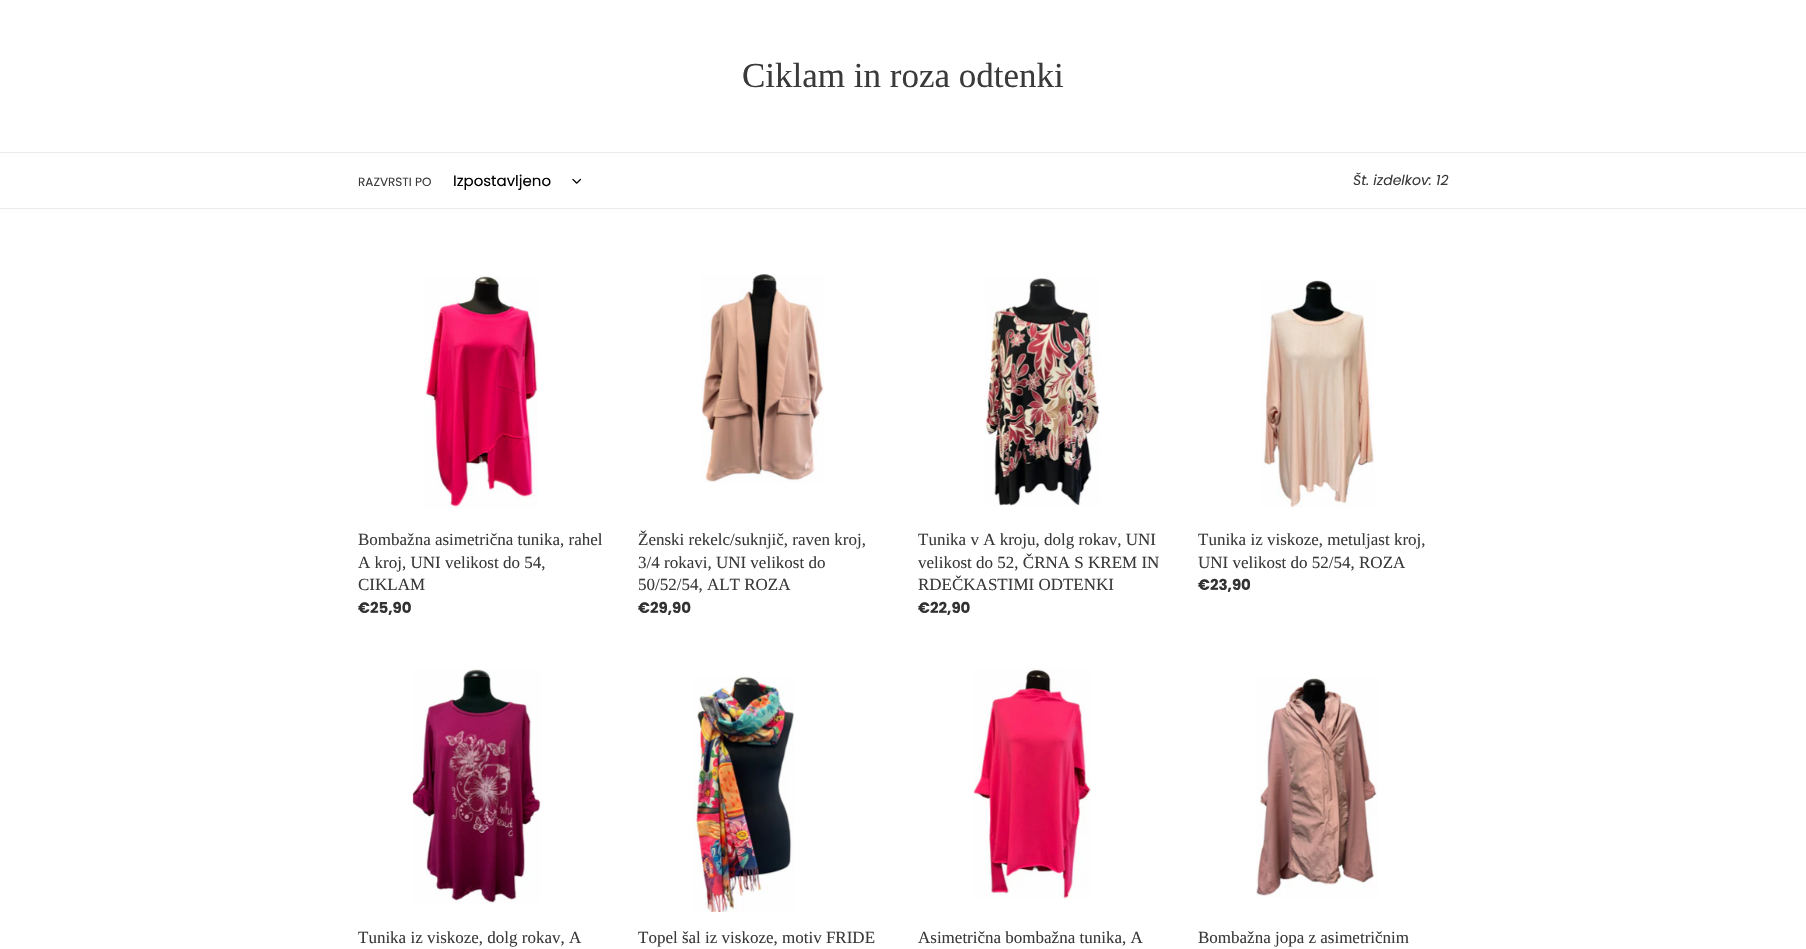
void draw(SkCanvas* c) {
SkPaint p;
p.setAntiAlias(true);
auto F=[&](const char* family, int weight, float size, bool italic = false){SkFontStyle style(weight, SkFontStyle::kNormal_Width,italic ? SkFontStyle::kItalic_Slant : SkFontStyle::kUpright_Slant);SkFont result(fontMgr->matchFamilyStyle(family, style), size);result.setSubpixel(true);return result;};
auto T=[&](const char* s, float x, float y, const SkFont& font){c->drawString(s, x, y, font, p);};
auto R=[&](float x, float y, float w, float h){c->drawRect(SkRect::MakeXYWH(x, y, w, h), p);};
auto I=[&](const char* path, float x, float y, float w, float h){auto image = SkImages::DeferredFromEncodedData(SkData::MakeFromFileName(path));c->drawImageRect(image, SkRect::MakeXYWH(x, y, w, h), SkSamplingOptions());};
c->clear(0xffffffff);
auto f1 = F("Liberation Serif",400,35);
p.setColor(0xff3a3a3a);
T("Ciklam in roza odtenki",742,87,f1);
p.setColor(0xffebebeb);
R(0,152,1806,1);
R(0,208,1806,1);
auto f2 = F("Poppins",400,12);
p.setColor(0xff3a3a3a);
T("RAZVRSTI PO",358,186,f2);
auto f3 = F("Poppins",400,15);
p.setColor(0xff000000);
T("Izpostavljeno",453,186,f3);
I("1.png",572,178,9,6);
auto f4 = F("Poppins",400,14,true);
p.setColor(0xff3a3a3a);
T("Št. izdelkov: 12",1353,185,f4);
I("2.png",424,276,114,233);
auto f5 = F("Liberation Serif",400,17);
T("Bombažna asimetrična tunika, rahel",358,545,f5);
T("A kroj, UNI velikost do 54,",358,568,f5);
T("CIKLAM",358,590,f5);
auto f6 = F("Poppins",700,15);
p.setColor(0xff333232);
T("€25,90",358,613,f6);
I("3.png",701,274,123,209);
p.setColor(0xff3a3a3a);
T("Ženski rekelc/suknjič, raven kroj,",638,545,f5);
T("3/4 rokavi, UNI velikost do",638,568,f5);
T("50/52/54, ALT ROZA",638,590,f5);
p.setColor(0xff333232);
T("€29,90",638,613,f6);
I("4.png",985,277,115,229);
p.setColor(0xff3a3a3a);
T("Tunika v A kroju, dolg rokav, UNI",918,545,f5);
T("velikost do 52, ČRNA S KREM IN",918,568,f5);
T("RDEČKASTIMI ODTENKI",918,590,f5);
p.setColor(0xff333232);
T("€22,90",918,613,f6);
I("5.png",1262,280,113,228);
p.setColor(0xff3a3a3a);
T("Tunika iz viskoze, metuljast kroj,",1198,545,f5);
T("UNI velikost do 52/54, ROZA",1198,568,f5);
p.setColor(0xff333232);
T("€23,90",1198,590,f6);
I("6.png",412,669,129,234);
p.setColor(0xff3a3a3a);
T("Tunika iz viskoze, dolg rokav, A",358,943,f5);
I("7.png",693,676,102,236);
T("Topel šal iz viskoze, motiv FRIDE",638,943,f5);
I("8.png",973,668,118,232);
T("Asimetrična bombažna tunika, A",918,943,f5);
I("9.png",1256,678,122,220);
T("Bombažna jopa z asimetričnim",1198,943,f5);
}
